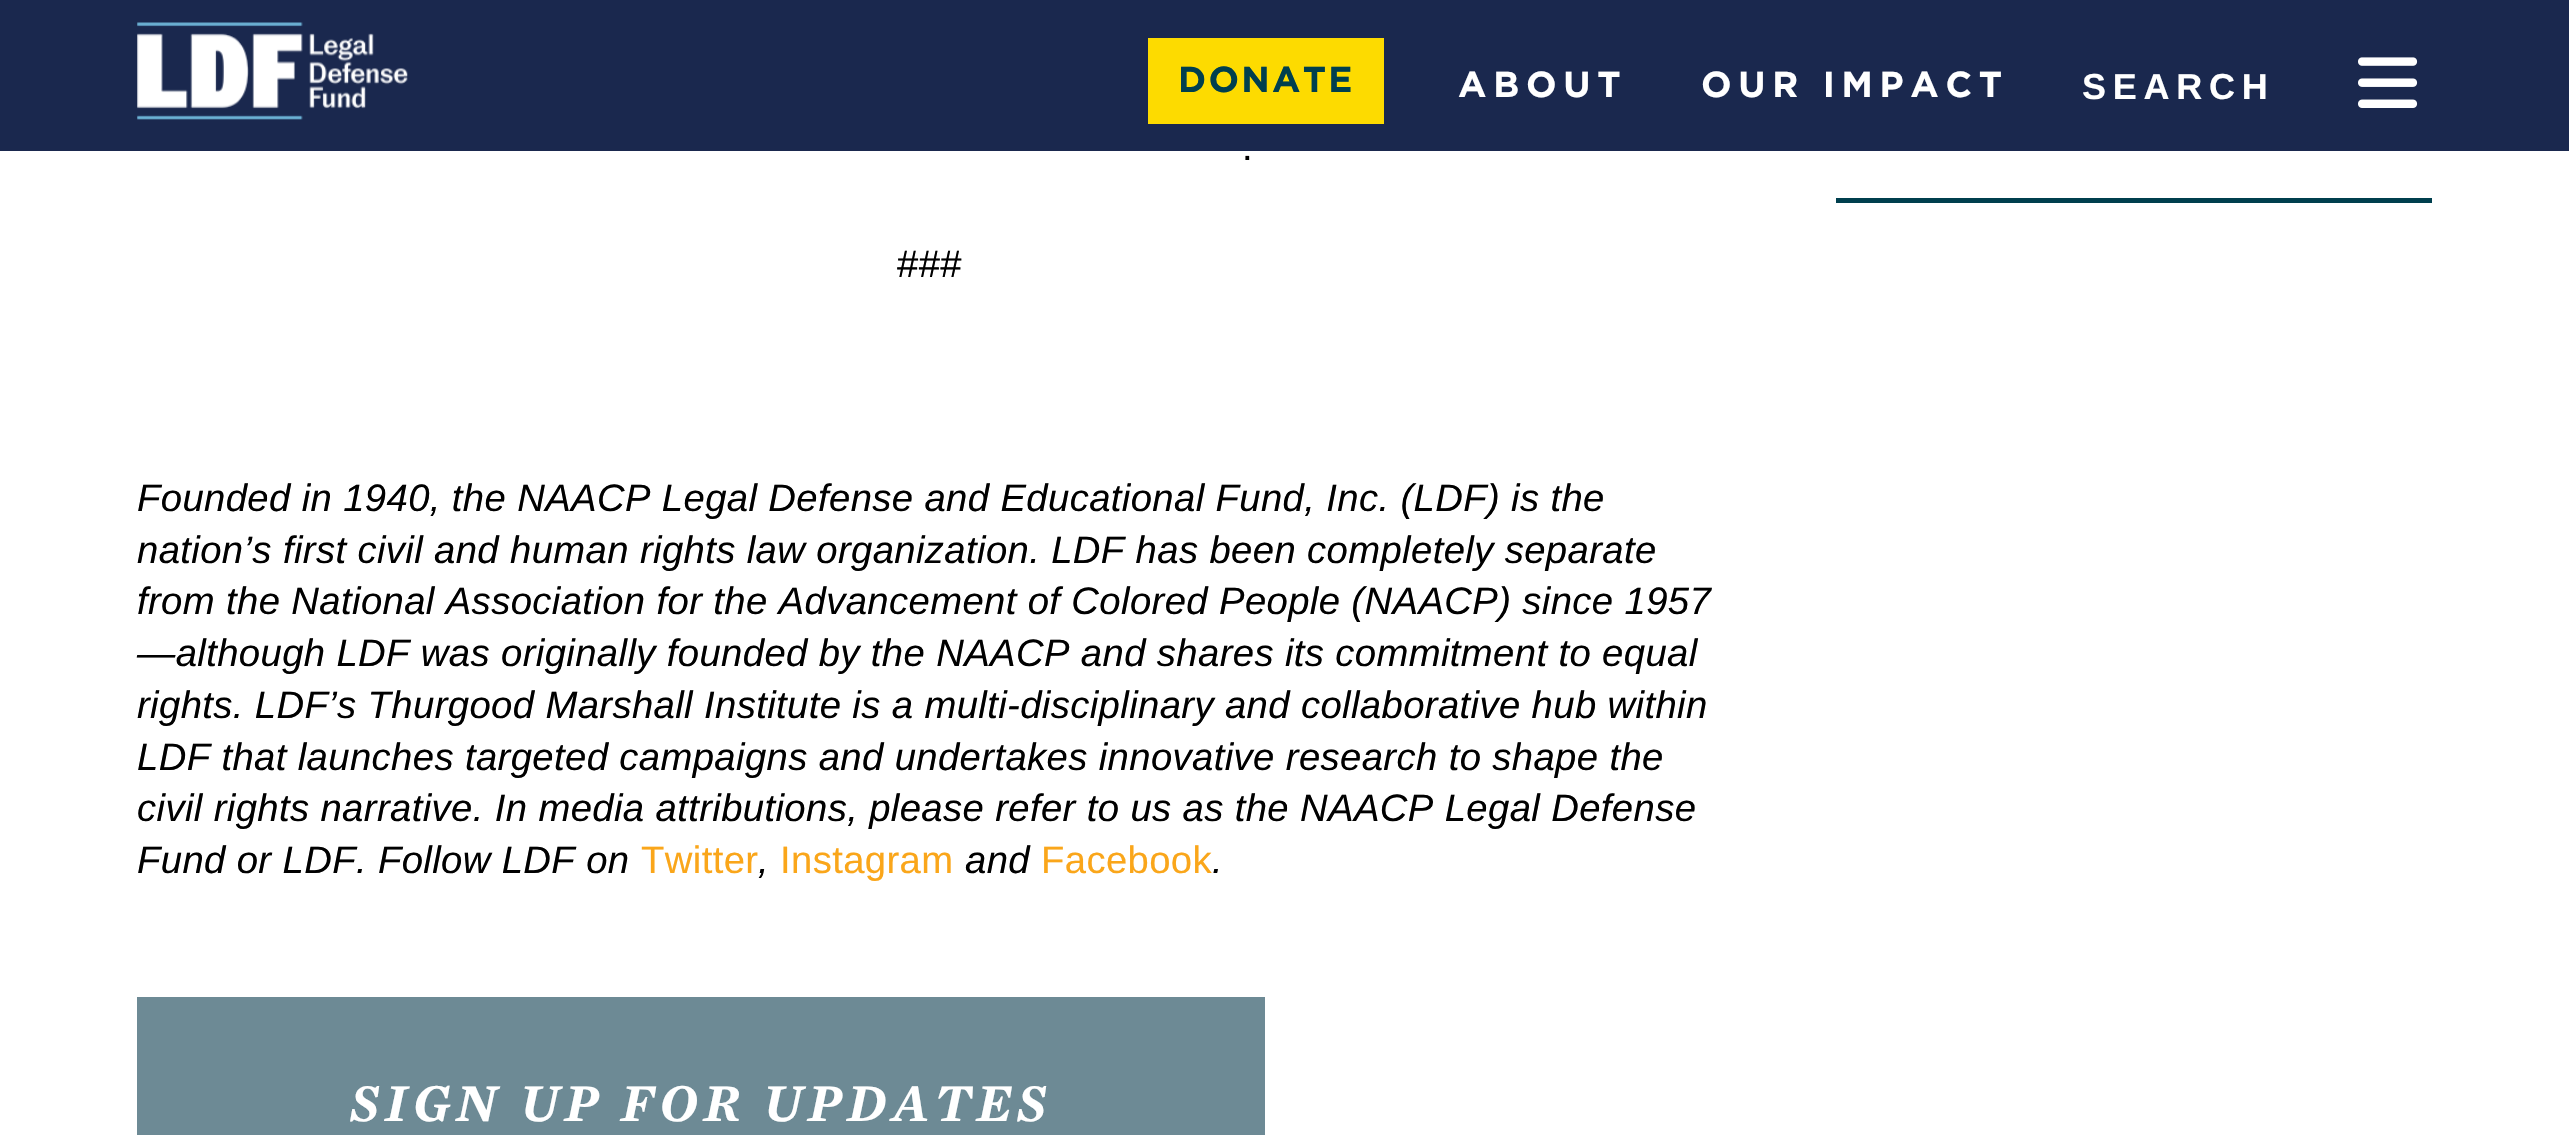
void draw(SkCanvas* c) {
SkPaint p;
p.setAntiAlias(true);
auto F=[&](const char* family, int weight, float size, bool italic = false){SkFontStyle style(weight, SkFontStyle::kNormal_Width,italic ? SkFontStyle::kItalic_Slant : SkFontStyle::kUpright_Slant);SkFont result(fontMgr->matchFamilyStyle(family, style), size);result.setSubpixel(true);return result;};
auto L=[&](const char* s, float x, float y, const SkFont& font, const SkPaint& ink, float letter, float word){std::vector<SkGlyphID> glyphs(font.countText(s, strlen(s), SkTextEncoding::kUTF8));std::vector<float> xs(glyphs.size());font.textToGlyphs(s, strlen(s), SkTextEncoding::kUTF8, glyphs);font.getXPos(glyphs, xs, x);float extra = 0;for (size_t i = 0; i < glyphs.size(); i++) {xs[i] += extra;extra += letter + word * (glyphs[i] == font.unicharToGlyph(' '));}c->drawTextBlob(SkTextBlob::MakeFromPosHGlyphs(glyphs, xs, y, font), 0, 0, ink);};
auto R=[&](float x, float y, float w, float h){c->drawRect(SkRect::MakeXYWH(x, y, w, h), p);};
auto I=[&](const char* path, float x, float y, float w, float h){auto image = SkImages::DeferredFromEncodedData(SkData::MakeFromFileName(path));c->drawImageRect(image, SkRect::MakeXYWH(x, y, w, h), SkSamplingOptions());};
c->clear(0xffffffff);
p.setColor(0xff1a284e);
R(0,0,2569,151);
I("1.png",137,22,271,98);
p.setColor(0xfffddb00);
R(1148,38,236,86);
auto f1 = F("Gotham",700,36);
p.setColor(0xff003f4e);
L("DONATE",1178,92,f1,p,2.25,0);
p.setColor(0xffffffff);
L("ABOUT",1458,97,f1,p,6.75,0);
L("OUR IMPACT",1701,97,f1,p,6.75,0);
auto f2 = F("Liberation Sans",700,36);
L("SEARCH",2082,99,f2,p,6.75,0);
I("2.png",2358,57,60,51);
auto f3 = F("Liberation Sans",400,38.25);
p.setColor(0xff000000);
L(".",1242,160,f3,p,.38,0);
L("###",897,277,f3,p,.38,0);
auto f4 = F("Liberation Sans",400,38.25,true);
L("Founded in 1940, the NAACP Legal Defense and Educational Fund, Inc. (LDF) is the",137,511,f4,p,.38,0);
L("nation’s first civil and human rights law organization. LDF has been completely separate",137,563,f4,p,.38,0);
L("from the National Association for the Advancement of Colored People (NAACP) since 1957",137,614,f4,p,.38,0);
L("—although LDF was originally founded by the NAACP and shares its commitment to equal",137,666,f4,p,.38,0);
L("rights. LDF’s Thurgood Marshall Institute is a multi-disciplinary and collaborative hub within",137,718,f4,p,.38,0);
L("LDF that launches targeted campaigns and undertakes innovative research to shape the",137,770,f4,p,.38,0);
L("civil rights narrative. In media attributions, please refer to us as the NAACP Legal Defense",137,821,f4,p,.38,0);
L("Fund or LDF. Follow LDF on",137,873,f4,p,.38,0);
p.setColor(0xfffaa61a);
L("Twitter",641,873,f3,p,.38,0);
p.setColor(0xff000000);
L(",",758,873,f4,p,.38,0);
p.setColor(0xfffaa61a);
L("Instagram",780,873,f3,p,.38,0);
p.setColor(0xff000000);
L("and",965,873,f4,p,.38,0);
p.setColor(0xfffaa61a);
L("Facebook",1041,873,f3,p,.38,0);
p.setColor(0xff000000);
L(".",1212,873,f4,p,.38,0);
p.setColor(0xff003f4e);
R(1836,198,596,5);
p.setColor(0xff6d8a95);
R(137,997,1128,138);
auto f5 = F("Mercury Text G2",600,54,true);
p.setColor(0xffffffff);
L("SIGN UP FOR UPDATES",350,1121,f5,p,5.4,0);
}
